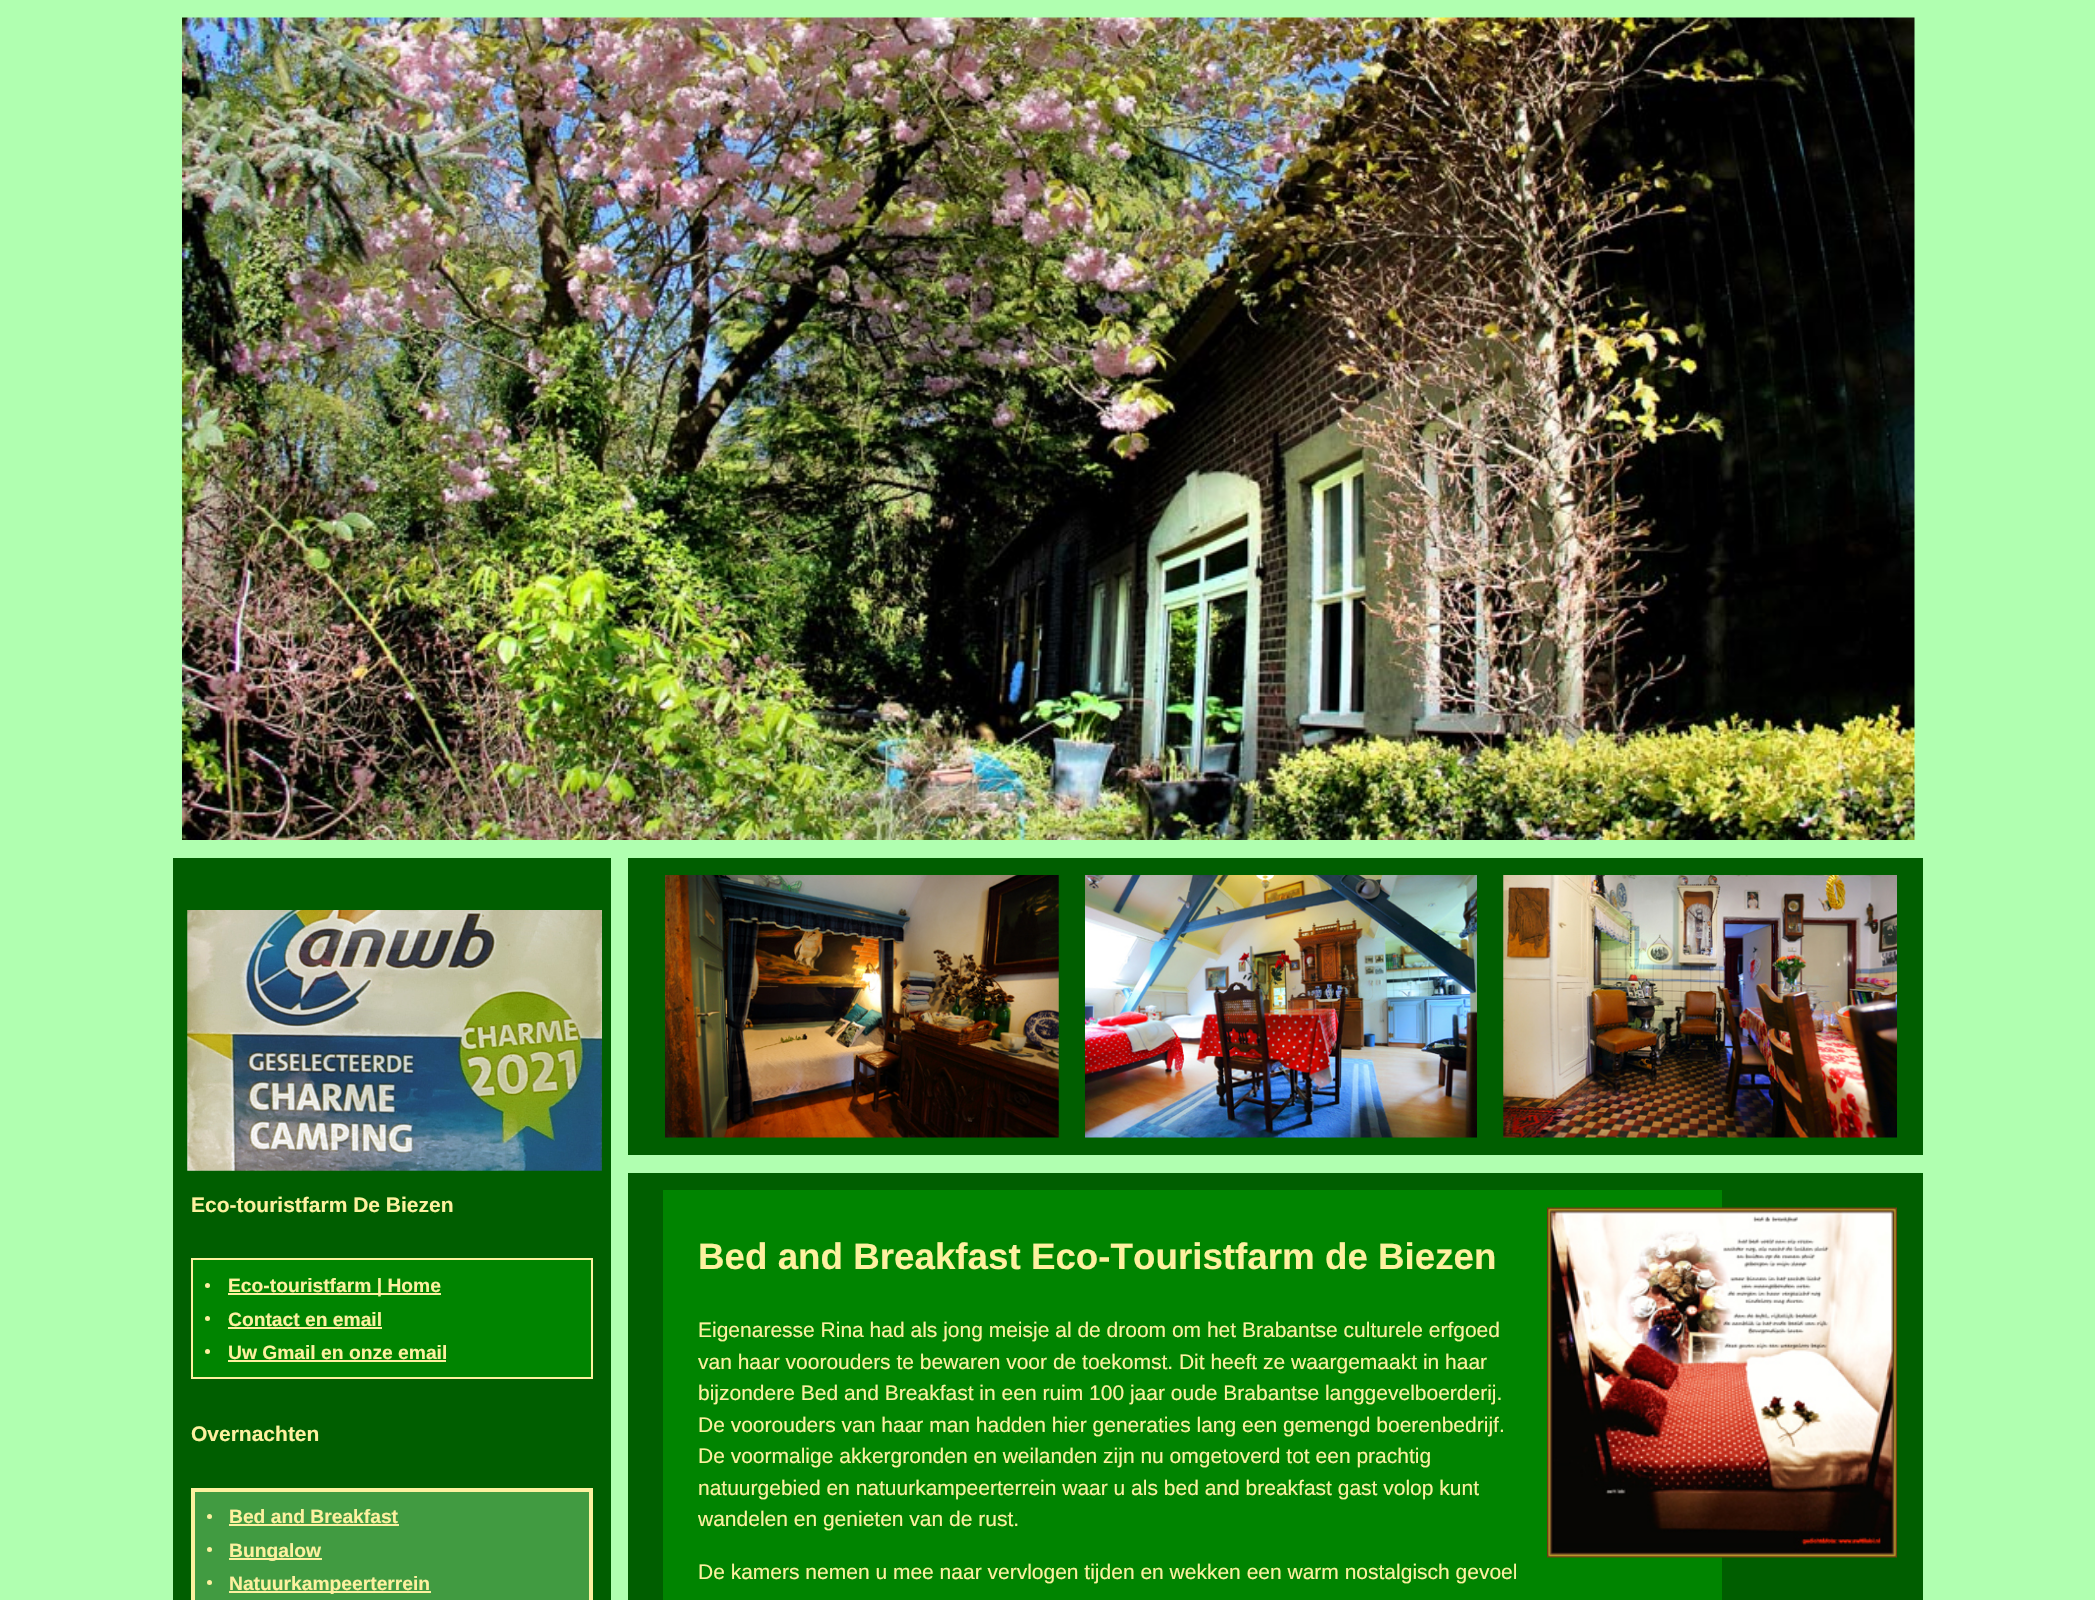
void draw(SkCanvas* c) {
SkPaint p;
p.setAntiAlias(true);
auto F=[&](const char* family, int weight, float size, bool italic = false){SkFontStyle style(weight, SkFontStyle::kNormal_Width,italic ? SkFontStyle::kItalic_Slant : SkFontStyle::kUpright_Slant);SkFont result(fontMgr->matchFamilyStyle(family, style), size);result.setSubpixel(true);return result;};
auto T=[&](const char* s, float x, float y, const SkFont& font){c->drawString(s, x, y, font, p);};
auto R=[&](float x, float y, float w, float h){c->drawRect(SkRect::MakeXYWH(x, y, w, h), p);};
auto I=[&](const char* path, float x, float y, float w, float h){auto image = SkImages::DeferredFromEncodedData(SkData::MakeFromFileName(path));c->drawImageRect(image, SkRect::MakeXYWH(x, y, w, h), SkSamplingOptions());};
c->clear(0xffb0ffb0);
I("1.png",182,17,1733,823);
p.setColor(0xff005e00);
R(628,858,1295,297);
I("2.png",665,875,394,263);
I("3.png",1085,875,392,263);
I("4.png",1503,875,394,263);
R(173,858,438,742);
I("5.png",187,910,415,261);
auto f1 = F("Liberation Sans",700,21);
p.setColor(0xfffdf19f);
T("Eco-touristfarm De Biezen",191,1212,f1);
p.setColor(0xff008400);
c->drawRect(SkRect::MakeXYWH(192,1259,400,119),p);
p.setStroke(true);
p.setStrokeWidth(2);
p.setColor(0xfffdf19f);
c->drawRect(SkRect::MakeXYWH(192,1259,400,119),p);
p.setStroke(false);
c->drawCircle(207.5,1285.5,2.5,p);
R(228,1293,213,2);
auto f2 = F("Liberation Sans",700,19.25);
T("Eco-touristfarm | Home",228,1292,f2);
c->drawCircle(207.5,1318.5,2.5,p);
T("Contact en email",228,1326,f2);
R(228,1327,154,2);
c->drawCircle(207.5,1351.5,2.5,p);
T("Uw Gmail en onze email",228,1359,f2);
R(228,1360,218,2);
T("Overnachten",191,1441,f1);
p.setColor(0xff419b41);
c->drawRect(SkRect::MakeXYWH(193,1490,398,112),p);
p.setStroke(true);
p.setStrokeWidth(4);
p.setColor(0xfffdf19f);
c->drawRect(SkRect::MakeXYWH(193,1490,398,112),p);
p.setStroke(false);
c->drawCircle(209.5,1516.5,2.5,p);
T("Bed and Breakfast",229,1523,f2);
R(229,1524,170,2);
c->drawCircle(209.5,1549.5,2.5,p);
R(229,1558,93,2);
T("Bungalow",229,1557,f2);
c->drawCircle(209.5,1582.5,2.5,p);
R(229,1591,202,2);
T("Natuurkampeerterrein",229,1590,f2);
p.setColor(0xff005e00);
R(628,1173,1295,427);
p.setColor(0xff008400);
R(663,1190,1059,410);
auto f3 = F("Liberation Sans",700,36.75);
p.setColor(0xfffdf19f);
T("Bed and Breakfast Eco-Touristfarm de Biezen",698,1269,f3);
auto f4 = F("Liberation Sans",400,21);
T("Eigenaresse Rina had als jong meisje al de droom om het Brabantse culturele erfgoed",698,1337,f4);
T("van haar voorouders te bewaren voor de toekomst. Dit heeft ze waargemaakt in haar",698,1369,f4);
T("bijzondere Bed and Breakfast in een ruim 100 jaar oude Brabantse langgevelboerderij.",698,1400,f4);
T("De voorouders van haar man hadden hier generaties lang een gemengd boerenbedrijf.",698,1432,f4);
T("De voormalige akkergronden en weilanden zijn nu omgetoverd tot een prachtig",698,1463,f4);
T("natuurgebied en natuurkampeerterrein waar u als bed and breakfast gast volop kunt",698,1495,f4);
T("wandelen en genieten van de rust.",698,1526,f4);
T("De kamers nemen u mee naar vervlogen tijden en wekken een warm nostalgisch gevoel",698,1579,f4);
I("6.png",1547,1207,350,351);
}
